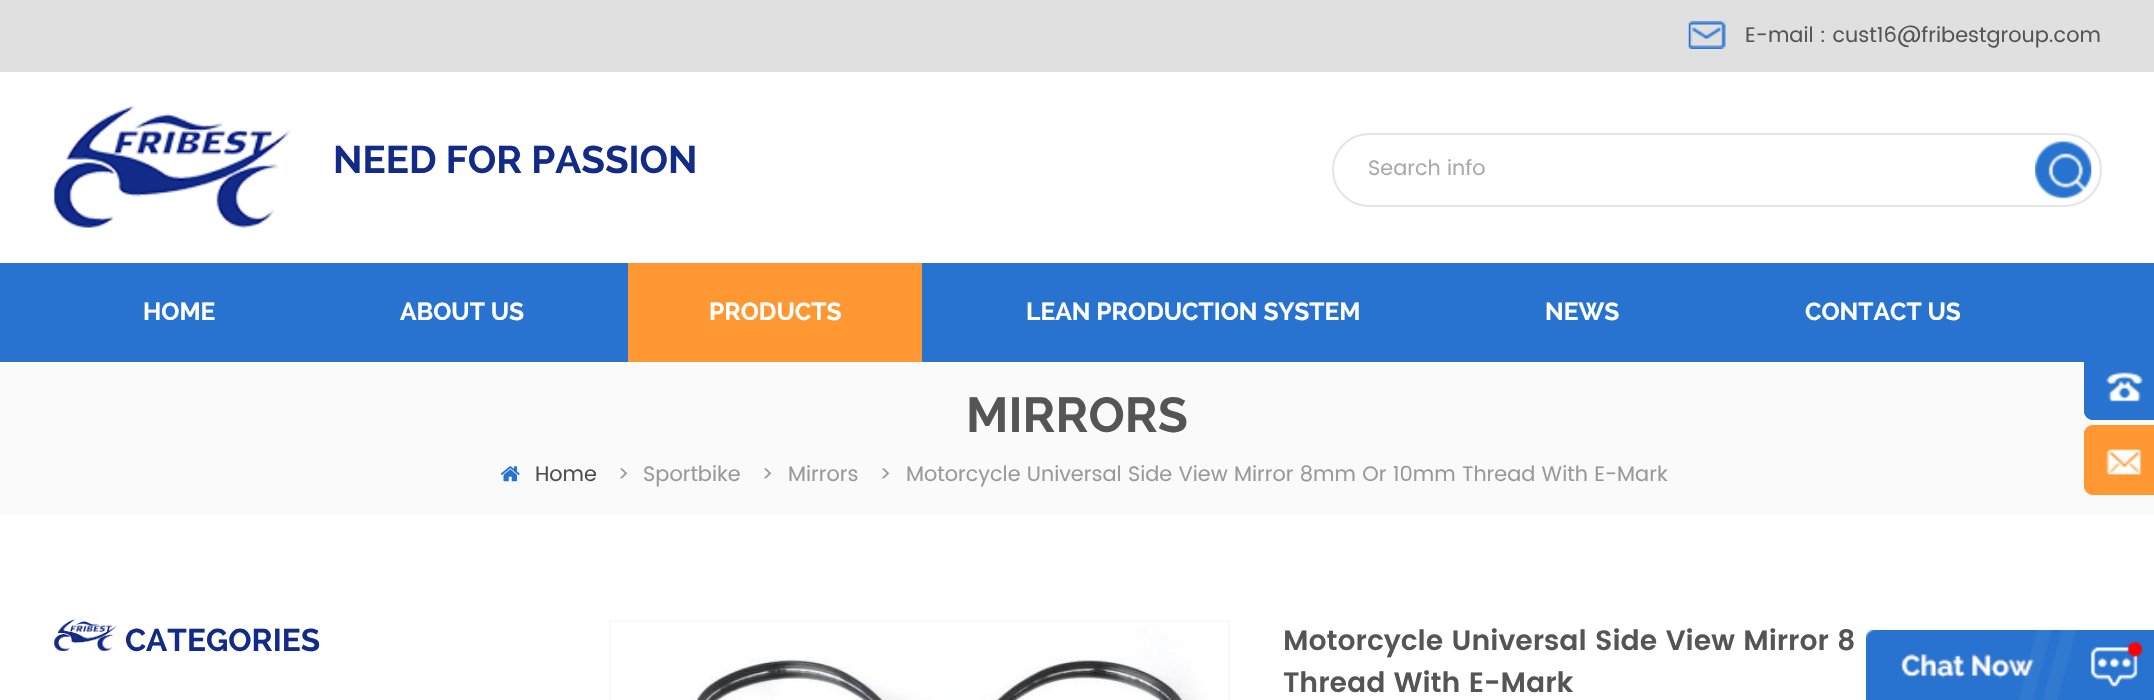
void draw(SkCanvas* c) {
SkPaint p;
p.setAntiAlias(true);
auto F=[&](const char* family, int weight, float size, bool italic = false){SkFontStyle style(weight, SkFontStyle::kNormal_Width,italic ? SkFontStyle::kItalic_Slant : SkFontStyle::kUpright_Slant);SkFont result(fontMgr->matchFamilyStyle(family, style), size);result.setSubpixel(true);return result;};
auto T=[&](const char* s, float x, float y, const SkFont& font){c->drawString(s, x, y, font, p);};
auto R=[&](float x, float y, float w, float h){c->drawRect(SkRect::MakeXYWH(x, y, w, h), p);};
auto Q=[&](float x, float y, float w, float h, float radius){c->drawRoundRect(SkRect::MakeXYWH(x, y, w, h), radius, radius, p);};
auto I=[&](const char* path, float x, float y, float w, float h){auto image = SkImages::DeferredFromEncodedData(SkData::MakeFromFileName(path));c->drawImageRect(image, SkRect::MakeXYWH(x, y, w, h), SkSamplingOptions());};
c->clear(0xffffffff);
p.setColor(0xffe0e0e0);
R(0,0,2154,72);
I("1.png",1688,21,38,28);
auto f1 = F("Poppins",400,21);
p.setColor(0xff555555);
T("E-mail : cust16@fribestgroup.com",1745,42,f1);
I("2.png",53,106,238,122);
auto f2 = F("Raleway",700,38.5);
p.setColor(0xff122b88);
T("NEED FOR PASSION",333,173,f2);
p.setStroke(true);
p.setStrokeWidth(2);
p.setColor(0xffe5e5e5);
c->drawRoundRect(SkRect::MakeXYWH(1333,134,768,72),36,36,p);
p.setStroke(false);
p.setColor(0xffaaaaaa);
T("Search info",1368,175,f1);
I("3.png",2035,141,57,58);
p.setColor(0xff2773cf);
R(0,263,2154,99);
auto f3 = F("Raleway",700,24.5);
p.setColor(0xffffffff);
T("HOME",143,320,f3);
T("ABOUT US",400,320,f3);
p.setColor(0xffff9832);
R(628,263,294,99);
p.setColor(0xffffffff);
T("PRODUCTS",709,320,f3);
T("LEAN PRODUCTION SYSTEM",1026,320,f3);
T("NEWS",1545,320,f3);
T("CONTACT US",1805,320,f3);
p.setColor(0xfffafafa);
R(0,364,2154,151);
auto f4 = F("Raleway",700,49);
p.setColor(0xff555555);
T("MIRRORS",966,432,f4);
I("4.png",500,466,20,16);
p.setColor(0xff4d4d4d);
T("Home",535,481,f1);
p.setColor(0xff999999);
T(">",617,481,f1);
T("Sportbike",643,481,f1);
T(">",761,481,f1);
T("Mirrors",788,481,f1);
T(">",879,481,f1);
T("Motorcycle Universal Side View Mirror 8mm Or 10mm Thread With E-Mark",906,481,f1);
p.setColor(0xff2773cf);
Q(2084,350,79,70,9);
I("5.png",2106,372,37,30);
p.setStroke(true);
p.setStrokeWidth(4);
c->drawRoundRect(SkRect::MakeXYWH(2086,352,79,66),7,7,p);
p.setStroke(false);
p.setColor(0xffff9832);
Q(2084,425,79,70,9);
I("6.png",2106,449,36,26);
p.setStroke(true);
c->drawRoundRect(SkRect::MakeXYWH(2086,427,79,66),7,7,p);
I("7.png",54,619,63,32);
auto f5 = F("Raleway",700,31.5);
p.setStroke(false);
p.setColor(0xff122b88);
T("CATEGORIES",125,651,f5);
p.setStroke(true);
p.setStrokeWidth(2);
p.setColor(0xfff7f7f7);
c->drawRect(SkRect::MakeXYWH(610,621,619,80),p);
I("8.png",611,621,617,79);
auto f6 = F("Poppins",600,28);
p.setStroke(false);
p.setColor(0xff555555);
T("Motorcycle Universal Side View Mirror 8",1283,650,f6);
T("Thread With E-Mark",1283,692,f6);
I("9.png",1866,630,288,70);
}
